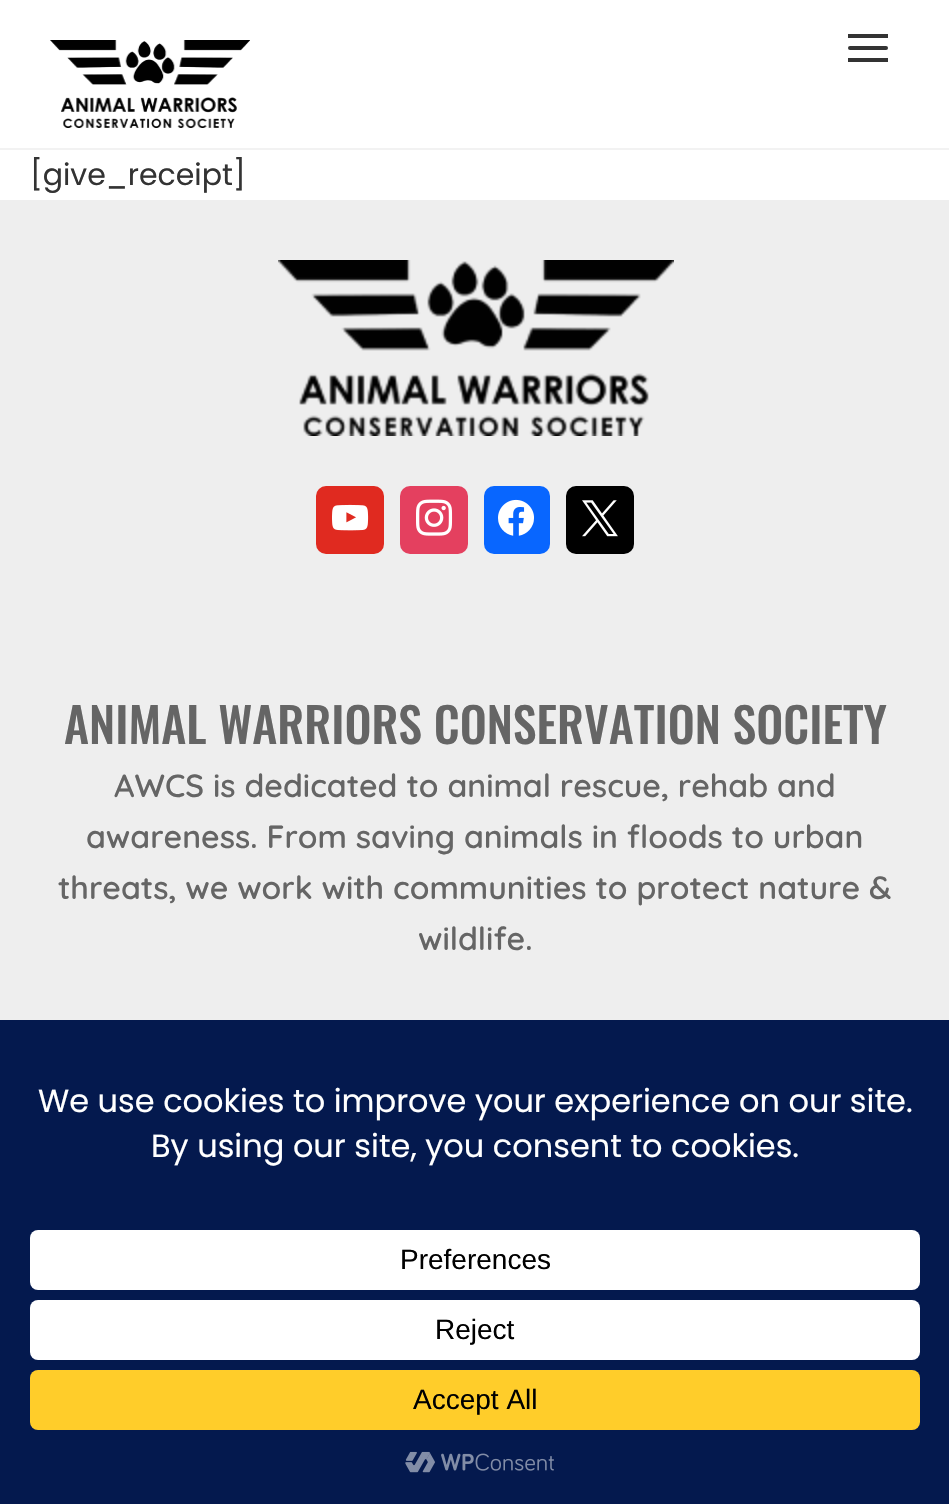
void draw(SkCanvas* c) {
SkPaint p;
p.setAntiAlias(true);
auto F=[&](const char* family, int weight, float size, bool italic = false){SkFontStyle style(weight, SkFontStyle::kNormal_Width,italic ? SkFontStyle::kItalic_Slant : SkFontStyle::kUpright_Slant);SkFont result(fontMgr->matchFamilyStyle(family, style), size);result.setSubpixel(true);return result;};
auto T=[&](const char* s, float x, float y, const SkFont& font){c->drawString(s, x, y, font, p);};
auto R=[&](float x, float y, float w, float h){c->drawRect(SkRect::MakeXYWH(x, y, w, h), p);};
auto Q=[&](float x, float y, float w, float h, float radius){c->drawRoundRect(SkRect::MakeXYWH(x, y, w, h), radius, radius, p);};
auto I=[&](const char* path, float x, float y, float w, float h){auto image = SkImages::DeferredFromEncodedData(SkData::MakeFromFileName(path));c->drawImageRect(image, SkRect::MakeXYWH(x, y, w, h), SkSamplingOptions());};
c->clear(0xffffffff);
I("1.png",50,40,200,88);
p.setColor(0xff333333);
Q(848,46,40,4,2);
R(848,34,40,4);
R(848,58,40,4);
p.setColor(0xfff2f2f2);
R(0,148,949,2);
auto f1 = F("Poppins",400,30);
p.setColor(0xff333333);
T("[give_receipt]",30,185,f1);
p.setColor(0xffeeeeee);
R(0,200,949,820);
I("2.png",278,260,396,176);
p.setColor(0xffe02a20);
Q(316,486,68,68,10);
I("3.png",332,504,37,27);
p.setColor(0xffe4405f);
Q(400,486,68,68,10);
I("4.png",416,499,37,37);
p.setColor(0xff0866ff);
Q(484,486,66,68,10);
I("5.png",498,499,36,37);
p.setColor(0xff000000);
Q(566,486,68,68,10);
I("6.png",582,500,36,37);
auto f2 = F("Oswald",500,48);
p.setColor(0xff656565);
T("ANIMAL WARRIORS CONSERVATION SOCIETY",64,744,f2);
auto f3 = F("Quicksand",600,32);
T("AWCS is dedicated to animal rescue, rehab and",114,797,f3);
T("awareness. From saving animals in floods to urban",86,848,f3);
T("threats, we work with communities to protect nature &",58,899,f3);
T("wildlife.",418,950,f3);
p.setColor(0xff04194e);
R(0,1020,949,484);
auto f4 = F("Poppins",400,32);
p.setColor(0xffffffff);
T("We use cookies to improve your experience on our site.",38,1112,f4);
T("By using our site, you consent to cookies.",151,1157,f4);
Q(30,1230,890,60,8);
auto f5 = F("Liberation Sans",400,28);
p.setColor(0xff000000);
T("Preferences",400,1269,f5);
p.setColor(0xffffffff);
Q(30,1300,890,60,8);
p.setColor(0xff000000);
T("Reject",435,1339,f5);
p.setColor(0xffffcd2a);
Q(30,1370,890,60,8);
p.setColor(0xff000000);
T("Accept All",413,1409,f5);
I("7.png",405,1451,149,22);
}
